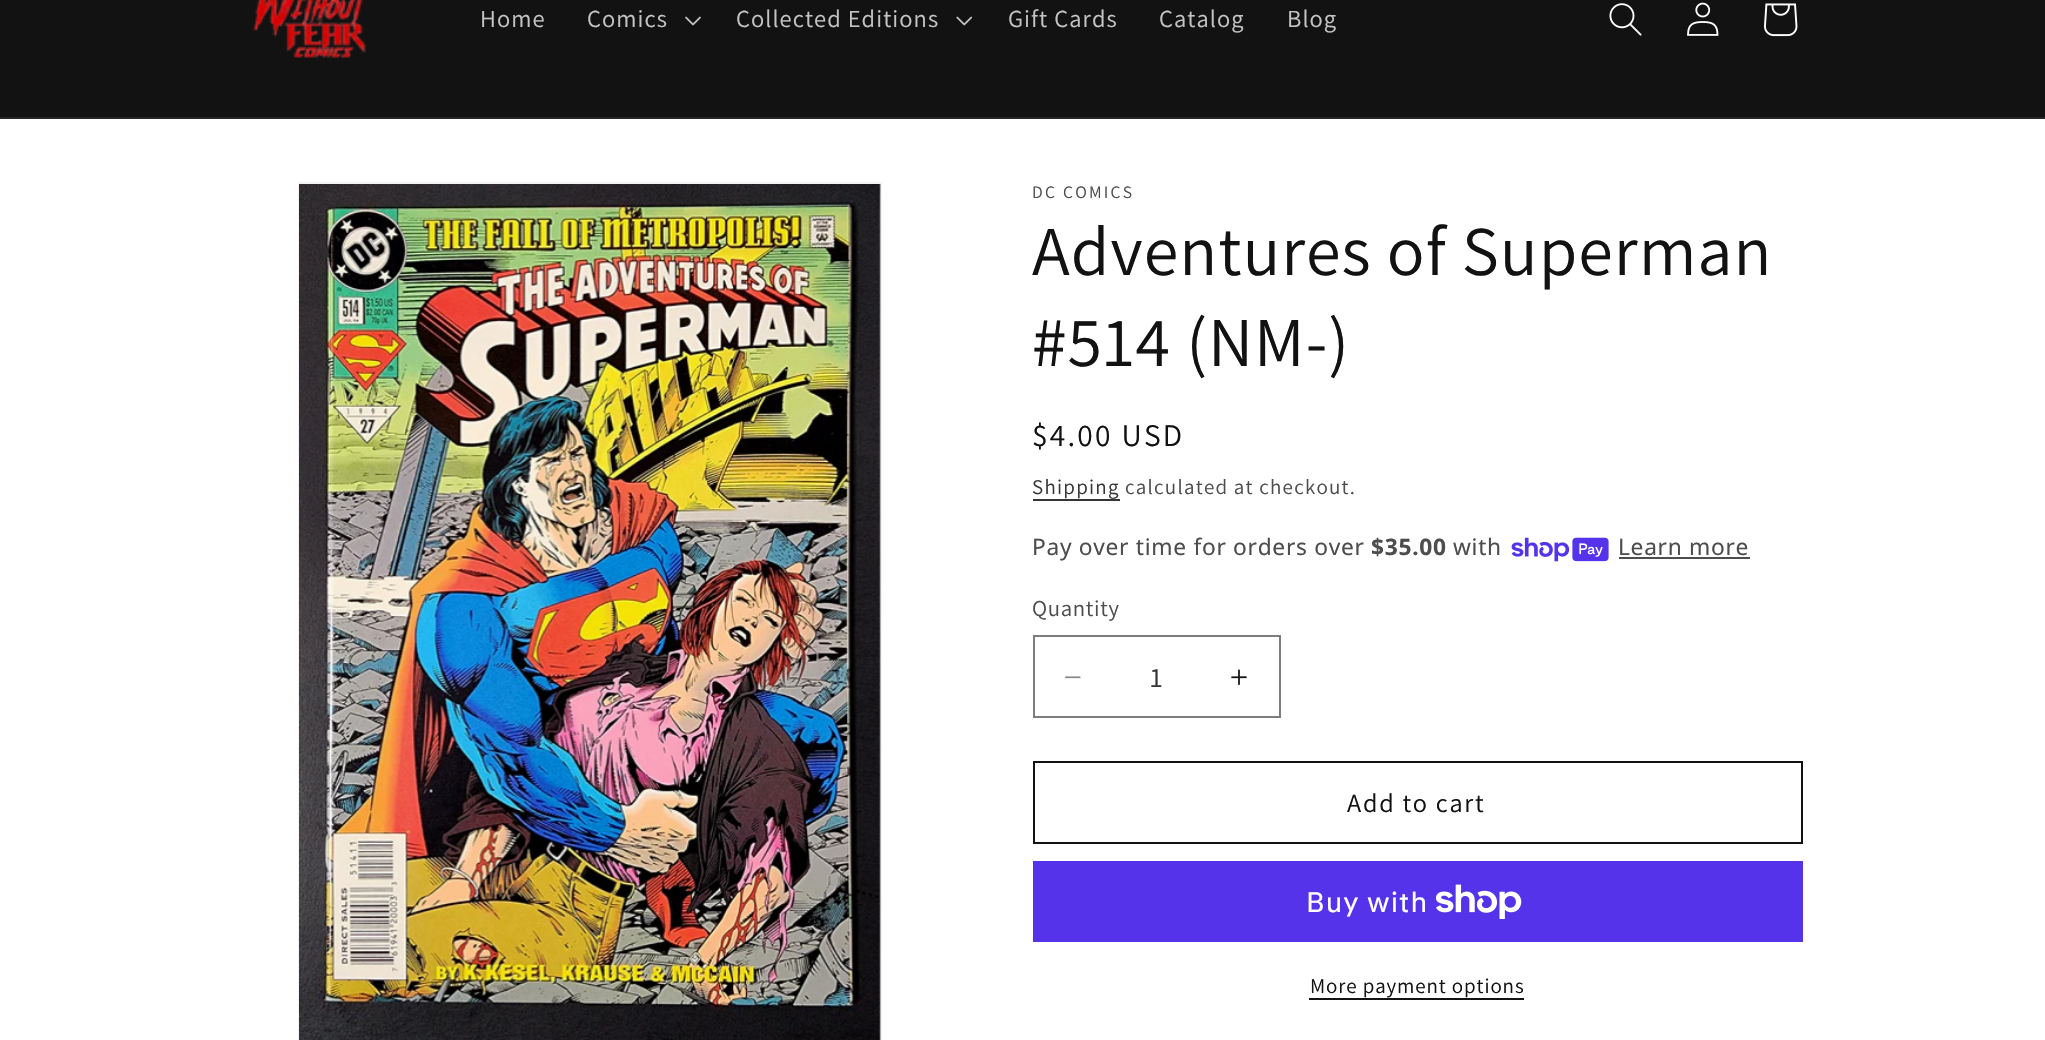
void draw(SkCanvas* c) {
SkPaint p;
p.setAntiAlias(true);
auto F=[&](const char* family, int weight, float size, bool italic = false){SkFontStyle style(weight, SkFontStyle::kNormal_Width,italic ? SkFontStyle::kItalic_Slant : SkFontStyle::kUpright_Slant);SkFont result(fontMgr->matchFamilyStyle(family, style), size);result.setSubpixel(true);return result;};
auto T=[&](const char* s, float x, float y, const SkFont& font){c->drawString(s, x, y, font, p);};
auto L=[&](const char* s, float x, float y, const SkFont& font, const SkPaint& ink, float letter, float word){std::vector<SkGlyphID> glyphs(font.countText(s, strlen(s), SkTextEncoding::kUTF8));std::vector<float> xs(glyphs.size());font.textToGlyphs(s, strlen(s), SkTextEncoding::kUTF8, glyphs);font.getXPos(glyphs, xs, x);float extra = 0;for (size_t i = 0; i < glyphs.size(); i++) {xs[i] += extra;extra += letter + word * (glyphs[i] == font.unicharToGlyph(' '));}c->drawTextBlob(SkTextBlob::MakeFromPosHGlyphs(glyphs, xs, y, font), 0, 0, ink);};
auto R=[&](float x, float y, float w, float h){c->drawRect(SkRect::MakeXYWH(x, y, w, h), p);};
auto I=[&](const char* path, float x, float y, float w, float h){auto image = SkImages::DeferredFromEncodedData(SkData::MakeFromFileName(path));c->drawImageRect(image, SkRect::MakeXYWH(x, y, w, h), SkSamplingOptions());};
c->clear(0xffffffff);
p.setColor(0xff121212);
R(0,0,2045,117);
p.setColor(0xff252525);
R(0,117,2045,2);
I("1.png",253,0,114,58);
auto f1 = F("Assistant",400,24.5);
p.setColor(0xffc4c4c4);
L("Home",480,27,f1,p,1.05,0);
L("Comics",587,27,f1,p,1.05,0);
I("2.png",685,16,16,10);
L("Collected Editions",736,27,f1,p,1.05,0);
I("3.png",956,16,17,10);
L("Gift Cards",1008,27,f1,p,1.05,0);
L("Catalog",1159,27,f1,p,1.05,0);
L("Blog",1287,27,f1,p,1.05,0);
I("4.png",1609,3,33,33);
I("5.png",1687,2,32,34);
I("6.png",1764,3,34,34);
p.setStroke(true);
p.setStrokeWidth(2);
p.setColor(0xfff3f3f3);
c->drawRect(SkRect::MakeXYWH(299,183,582,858),p);
I("7.png",299,184,582,856);
auto f2 = F("Assistant",400,17.5);
p.setStroke(false);
p.setColor(0xff4d4d4d);
L("DC COMICS",1032,198,f2,p,2.25,0);
auto f3 = F("Assistant",400,70);
p.setColor(0xff121212);
L("Adventures of Superman",1032,275,f3,p,1.05,0);
L("#514 (NM-)",1032,366,f3,p,1.05,0);
auto f4 = F("Assistant",400,31.5);
L("$4.00 USD",1032,446,f4,p,2.25,0);
auto f5 = F("Assistant",400,21);
p.setColor(0xff363636);
L("Shipping",1032,494,f5,p,1.25,0);
R(1033,499,87,2);
p.setColor(0xff4d4d4d);
L("calculated at checkout.",1125,494,f5,p,1.25,0);
auto f6 = F("Noto Sans",400,22.75);
L("Pay over time for orders over",1032,555,f6,p,.7,0);
auto f7 = F("Noto Sans",700,22.75);
L("$35.00",1371,555,f7,p,.7,0);
L("with",1453,555,f6,p,.7,0);
I("8.png",1511,537,98,25);
L("Learn more",1618,555,f6,p,.7,0);
R(1619,557,131,2);
auto f8 = F("Assistant",400,22.75);
L("Quantity",1032,616,f8,p,.7,0);
I("9.png",1065,676,16,3);
I("10.png",1231,669,16,17);
p.setStroke(true);
p.setColor(0xff7d7d7d);
c->drawRect(SkRect::MakeXYWH(1034,636,246,81),p);
auto f9 = F("Assistant",400,28);
p.setStroke(false);
p.setColor(0xff363636);
T("1",1150,687,f9);
p.setStroke(true);
p.setColor(0xff121212);
c->drawRect(SkRect::MakeXYWH(1034,762,768,81),p);
auto f10 = F("Assistant",400,26.25);
p.setStroke(false);
L("Add to cart",1347,812,f10,p,1.75,0);
p.setColor(0xff5433eb);
R(1033,861,770,81);
auto f11 = F("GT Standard",400,28);
p.setColor(0xffffffff);
L("Buy with",1306,912,f11,p,1.05,0);
I("11.png",1436,884,86,35);
p.setColor(0xff121212);
L("More payment options",1310,993,f5,p,.9,0);
R(1309,998,215,2);
}
